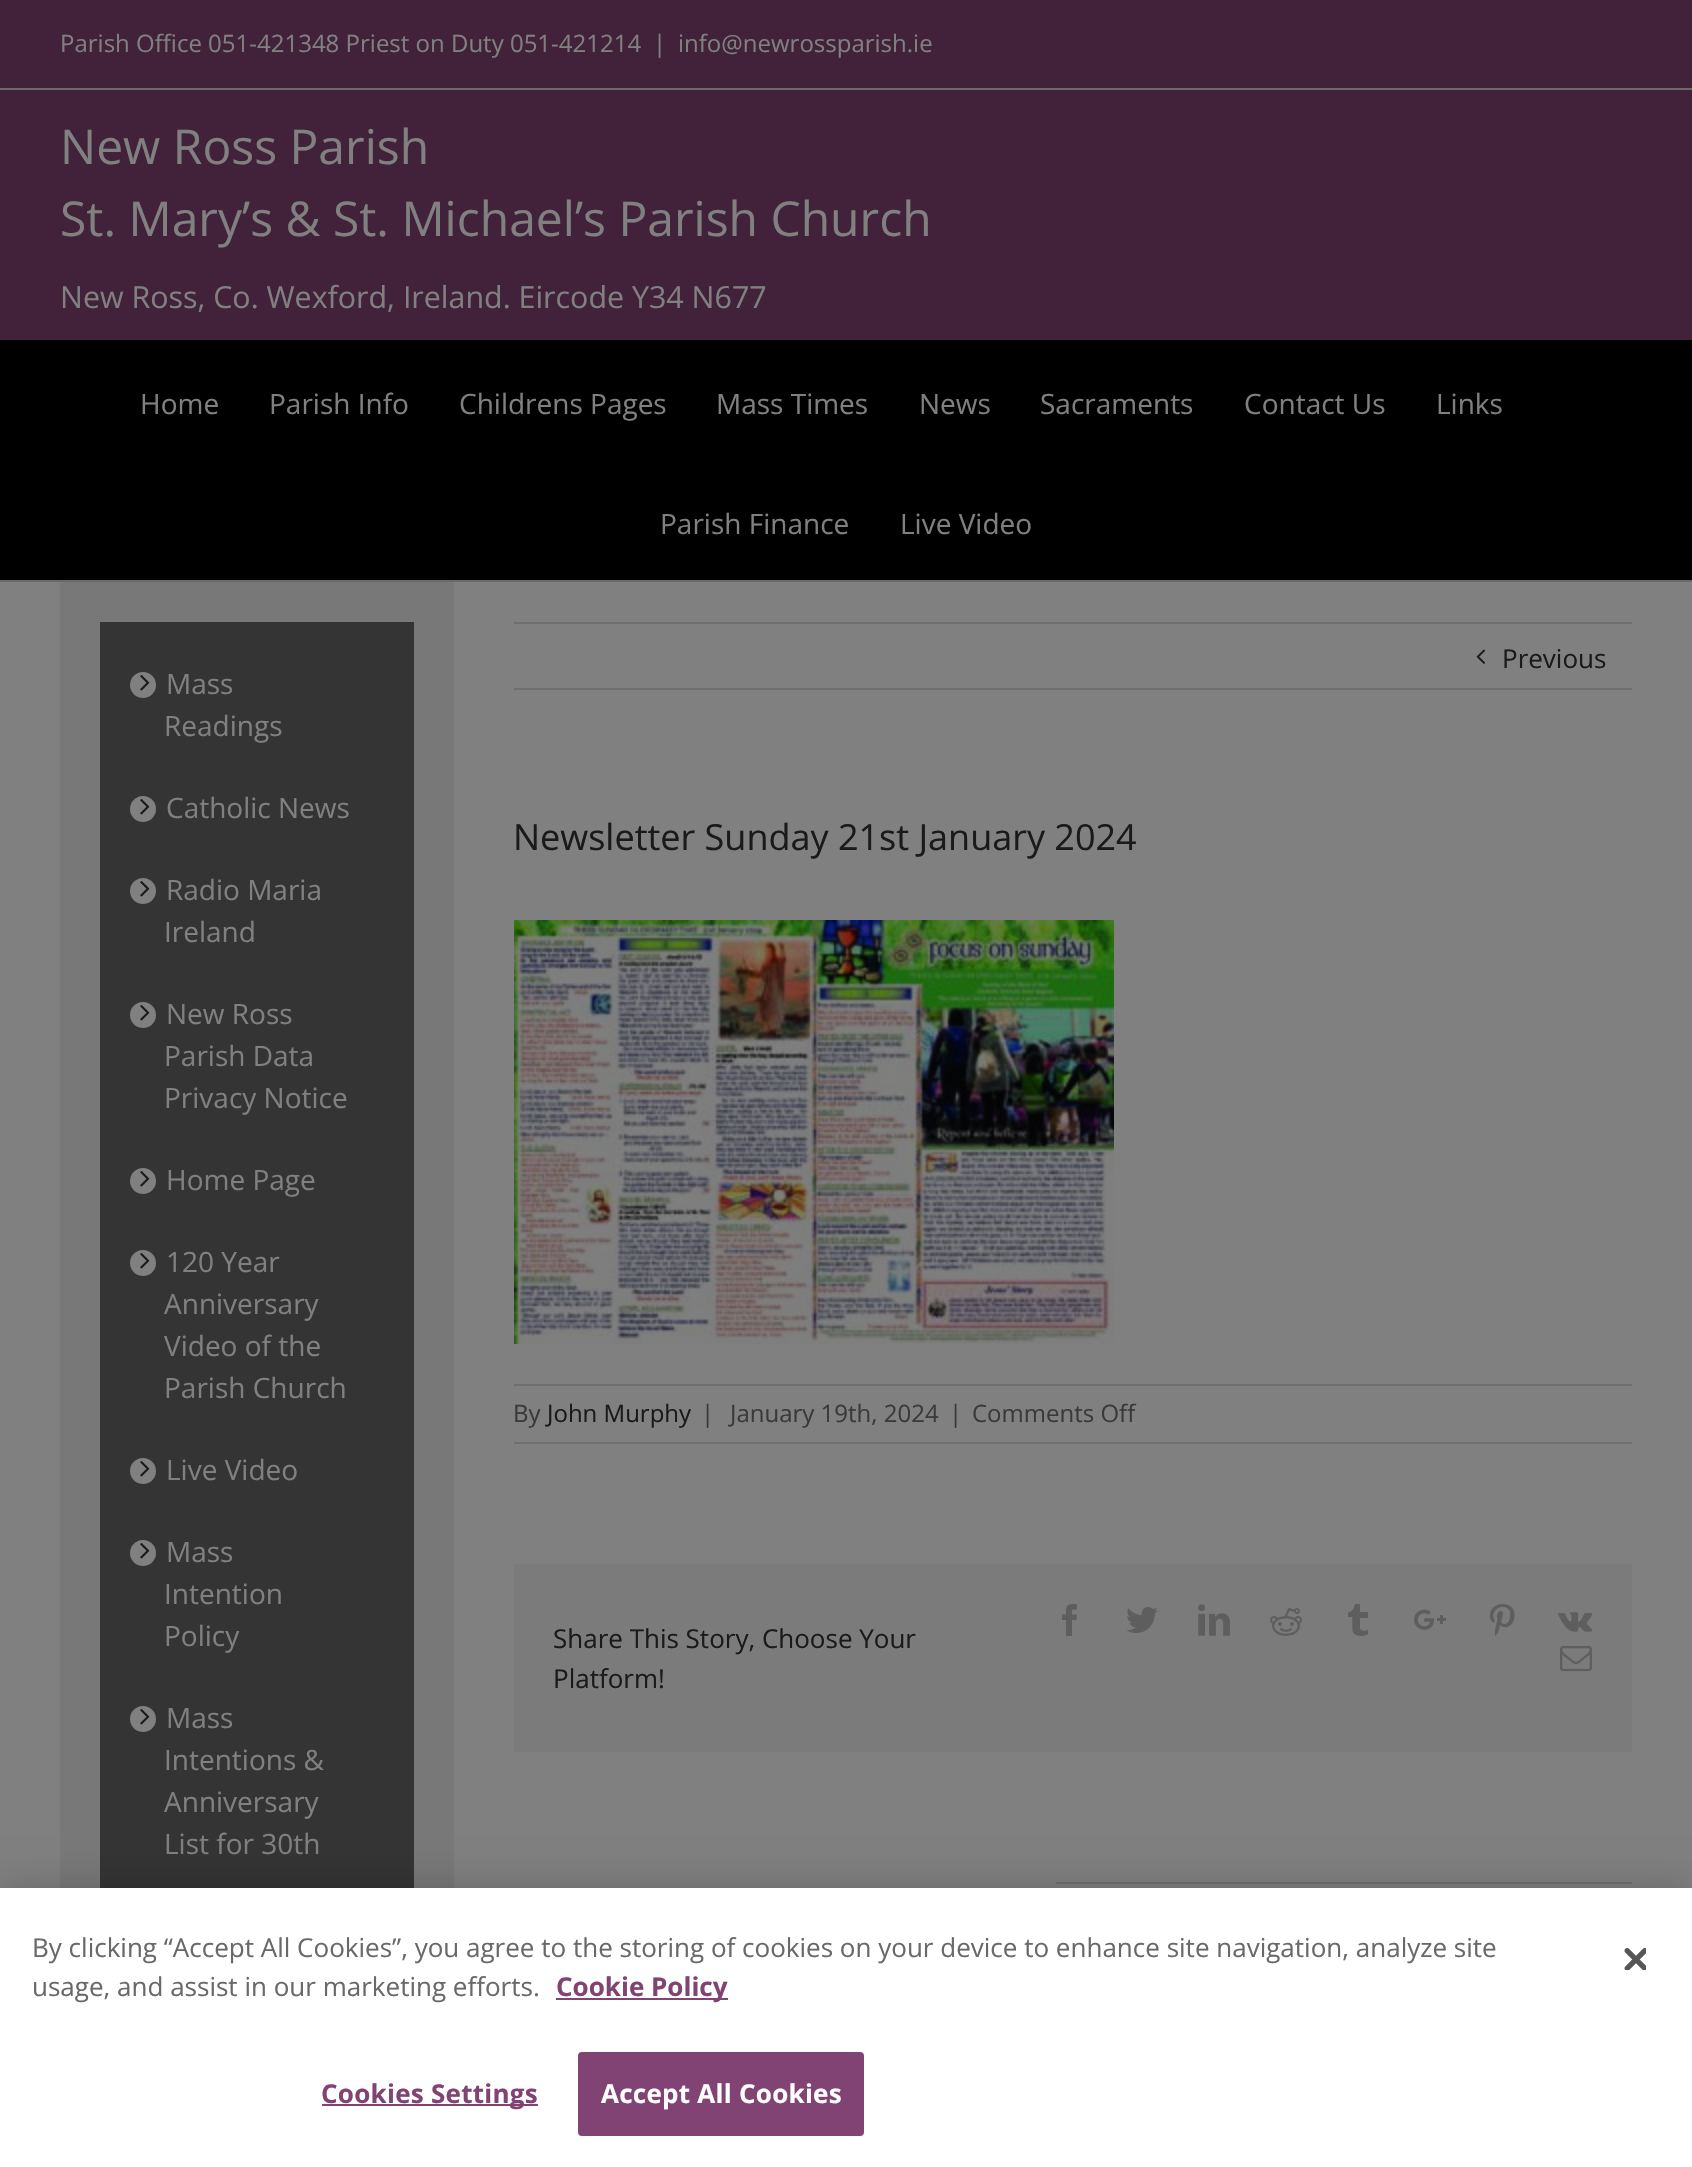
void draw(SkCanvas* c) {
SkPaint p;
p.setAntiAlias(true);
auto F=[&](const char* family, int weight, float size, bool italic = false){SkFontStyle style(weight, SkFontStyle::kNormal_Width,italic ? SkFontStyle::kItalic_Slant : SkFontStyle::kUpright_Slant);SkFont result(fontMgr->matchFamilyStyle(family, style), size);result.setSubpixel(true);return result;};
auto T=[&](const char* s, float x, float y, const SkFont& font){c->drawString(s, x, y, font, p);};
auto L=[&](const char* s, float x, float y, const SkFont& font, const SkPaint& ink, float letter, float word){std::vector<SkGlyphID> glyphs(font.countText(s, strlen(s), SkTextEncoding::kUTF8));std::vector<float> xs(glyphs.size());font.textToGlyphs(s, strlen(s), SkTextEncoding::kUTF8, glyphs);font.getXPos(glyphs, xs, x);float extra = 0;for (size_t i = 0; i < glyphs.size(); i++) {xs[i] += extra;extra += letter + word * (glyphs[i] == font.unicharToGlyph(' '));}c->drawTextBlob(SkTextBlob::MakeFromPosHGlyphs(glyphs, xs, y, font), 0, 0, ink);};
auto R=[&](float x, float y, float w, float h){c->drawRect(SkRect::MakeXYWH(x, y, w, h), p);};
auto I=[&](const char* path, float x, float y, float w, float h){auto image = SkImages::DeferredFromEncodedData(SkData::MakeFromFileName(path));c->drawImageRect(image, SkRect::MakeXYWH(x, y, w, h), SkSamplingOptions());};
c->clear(0xff808080);
p.setColor(0xff41223a);
R(0,0,1692,88);
p.setColor(0xff6a6a6a);
R(0,88,1692,2);
auto f1 = F("Open Sans",400,24);
p.setColor(0xff808080);
T("Parish Office 051-421348 Priest on Duty 051-421214",60,52,f1);
T("|",653,52,f1);
T("info@newrossparish.ie",678,52,f1);
p.setColor(0xff41223a);
R(0,90,1692,250);
auto f2 = F("Open Sans",400,48);
p.setColor(0xff808080);
T("New Ross Parish",60,164,f2);
T("St. Mary’s & St. Michael’s Parish Church",60,236,f2);
auto f3 = F("Open Sans",400,30.4);
T("New Ross, Co. Wexford, Ireland. Eircode Y34 N677",60,308,f3);
p.setColor(0xff000000);
R(0,340,1692,240);
p.setColor(0xff6a6a6a);
R(0,580,1692,2);
auto f4 = F("Open Sans",400,28);
p.setColor(0xff808080);
T("Home",140,414,f4);
T("Parish Info",269,414,f4);
T("Childrens Pages",459,414,f4);
T("Mass Times",716,414,f4);
T("News",919,414,f4);
T("Sacraments",1040,414,f4);
T("Contact Us",1244,414,f4);
T("Links",1436,414,f4);
T("Parish Finance",660,534,f4);
T("Live Video",900,534,f4);
p.setColor(0xff787878);
R(60,582,394,1306);
p.setColor(0xff343434);
R(100,622,314,1266);
p.setColor(0xff808080);
c->drawCircle(143,685,13,p);
I("1.png",140,675,10,16);
T("Mass",166,694,f4);
T("Readings",164,736,f4);
c->drawCircle(143,809,13,p);
I("1.png",140,799,10,16);
T("Catholic News",166,818,f4);
c->drawCircle(143,891,13,p);
I("1.png",140,881,10,16);
T("Radio Maria",166,900,f4);
T("Ireland",164,942,f4);
c->drawCircle(143,1015,13,p);
I("1.png",140,1005,10,16);
T("New Ross",166,1024,f4);
T("Parish Data",164,1066,f4);
T("Privacy Notice",164,1108,f4);
c->drawCircle(143,1181,13,p);
I("1.png",140,1171,10,16);
T("Home Page",166,1190,f4);
c->drawCircle(143,1263,13,p);
I("1.png",140,1253,10,16);
T("120 Year",166,1272,f4);
T("Anniversary",164,1314,f4);
T("Video of the",164,1356,f4);
T("Parish Church",164,1398,f4);
c->drawCircle(143,1471,13,p);
I("1.png",140,1461,10,16);
T("Live Video",166,1480,f4);
c->drawCircle(143,1553,13,p);
I("1.png",140,1543,10,16);
T("Mass",166,1562,f4);
T("Intention",164,1604,f4);
T("Policy",164,1646,f4);
c->drawCircle(143,1719,13,p);
I("1.png",140,1709,10,16);
T("Mass",166,1728,f4);
T("Intentions &",164,1770,f4);
T("Anniversary",164,1812,f4);
T("List for 30th",164,1854,f4);
p.setColor(0xff706f6f);
R(514,622,1118,2);
R(514,688,1118,2);
I("2.png",1476,649,10,15);
auto f5 = F("Open Sans",400,26);
p.setColor(0xff1a1a1a);
T("Previous",1502,668,f5);
auto f6 = F("Open Sans",400,36);
T("Newsletter Sunday 21st January 2024",513,850,f6);
I("3.png",514,920,600,424);
p.setColor(0xff706f6f);
R(514,1384,1118,2);
R(514,1442,1118,2);
p.setColor(0xff3a3a3a);
T("By",513,1422,f1);
p.setColor(0xff1a1a1a);
T("John Murphy",547,1422,f1);
p.setColor(0xff3a3a3a);
T("|",701,1422,f1);
T("January 19th, 2024",730,1422,f1);
T("|",949,1422,f1);
T("Comments Off",972,1422,f1);
p.setColor(0xff7b7b7b);
R(514,1564,1118,188);
p.setColor(0xff1a1a1a);
T("Share This Story, Choose Your",553,1648,f5);
T("Platform!",553,1688,f5);
I("4.png",1062,1604,15,32);
I("5.png",1126,1607,32,26);
I("6.png",1198,1604,32,32);
I("7.png",1270,1608,32,28);
I("8.png",1348,1604,20,32);
I("9.png",1414,1609,32,21);
I("10.png",1489,1604,26,32);
I("11.png",1558,1612,34,20);
I("12.png",1560,1646,32,26);
p.setColor(0xff706f6f);
R(1056,1882,576,2);
p.setColor(0x33000000);
p.setMaskFilter(SkMaskFilter::MakeBlur(kNormal_SkBlurStyle, 18));
c->drawRect(SkRect::MakeXYWH(0,1888,1692,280),p);
p.setMaskFilter(nullptr);
p.setColor(0xffffffff);
R(0,1888,1692,279);
auto f7 = F("Open Sans",400,26.02);
p.setColor(0xff696969);
T("By clicking “Accept All Cookies”, you agree to the storing of cookies on your device to enhance site navigation, analyze site",32,1957,f7);
T("usage, and assist in our marketing efforts.",32,1996,f7);
p.setColor(0xff814374);
R(556,1998,172,2);
auto f8 = F("Open Sans",700,26.02);
T("Cookie Policy",556,1996,f8);
I("13.png",1624,1948,22,22);
R(322,2104,216,2);
L("Cookies Settings",321,2103,f8,p,.25,0);
c->drawRoundRect(SkRect::MakeXYWH(579,2053,284,82),3,3,p);
p.setStroke(true);
p.setStrokeWidth(2);
c->drawRoundRect(SkRect::MakeXYWH(579,2053,284,82),3,3,p);
p.setStroke(false);
p.setColor(0xffffffff);
L("Accept All Cookies",601,2103,f8,p,.25,0);
}
